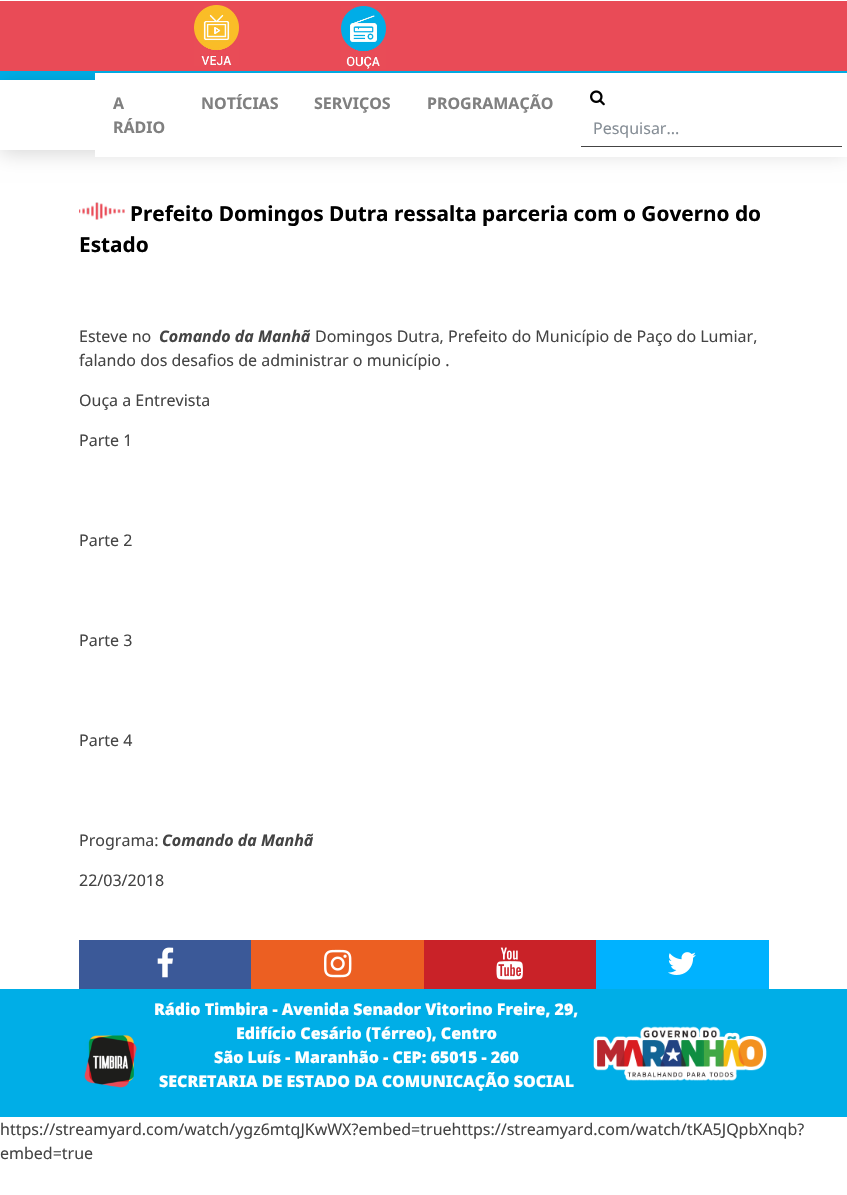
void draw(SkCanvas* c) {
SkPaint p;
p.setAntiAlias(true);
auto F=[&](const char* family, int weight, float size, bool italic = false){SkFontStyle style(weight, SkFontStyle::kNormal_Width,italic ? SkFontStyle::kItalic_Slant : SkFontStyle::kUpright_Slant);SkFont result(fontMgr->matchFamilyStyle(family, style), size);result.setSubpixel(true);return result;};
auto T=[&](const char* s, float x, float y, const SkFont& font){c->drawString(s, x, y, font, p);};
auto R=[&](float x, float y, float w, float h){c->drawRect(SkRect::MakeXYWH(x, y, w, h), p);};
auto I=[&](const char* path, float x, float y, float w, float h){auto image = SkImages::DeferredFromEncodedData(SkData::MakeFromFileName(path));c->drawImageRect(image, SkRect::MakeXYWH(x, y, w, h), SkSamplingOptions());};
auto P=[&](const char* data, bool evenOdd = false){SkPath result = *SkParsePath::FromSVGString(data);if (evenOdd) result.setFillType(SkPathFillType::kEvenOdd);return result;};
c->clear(0xffffffff);
p.setColor(0xff00aee7);
R(0,71,847,9);
c->save();
c->clipPath(P("M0 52h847v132h-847zm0 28h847v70h-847z",true),true);
p.setColor(0x29000000);
p.setMaskFilter(SkMaskFilter::MakeBlur(kNormal_SkBlurStyle, 10));
c->drawRect(SkRect::MakeXYWH(0,83,847,70),p);
p.setMaskFilter(nullptr);
c->restore();
p.setColor(0xffffffff);
R(95,73,752,84);
auto f1 = F("Noto Sans",700,16);
p.setColor(0xff808080);
T("A",113,109,f1);
T("RÁDIO",113,133,f1);
T("NOTÍCIAS",201,109,f1);
T("SERVIÇOS",314,109,f1);
T("PROGRAMAÇÃO",427,109,f1);
p.setColor(0xff444444);
R(581,146,261,1);
I("1.png",590,90,15,16);
auto f2 = F("Noto Sans",400,16);
p.setColor(0xff868e96);
T("Pesquisar...",593,134,f2);
I("2.png",79,202,46,18);
auto f3 = F("Noto Sans",700,20.8);
p.setColor(0xff000000);
T("Prefeito Domingos Dutra ressalta parceria com o Governo do",130,221,f3);
T("Estado",79,252,f3);
p.setColor(0xff444444);
T("Esteve no",79,342,f2);
auto f4 = F("Noto Sans",700,16,true);
T("Comando da Manhã",159,342,f4);
T("Domingos Dutra, Prefeito do Município de Paço do Lumiar,",315,342,f2);
T("falando dos desafios de administrar o município .",79,366,f2);
T("Ouça a Entrevista",79,406,f2);
T("Parte 1",79,446,f2);
T("Parte 2",79,546,f2);
T("Parte 3",79,646,f2);
T("Parte 4",79,746,f2);
T("Programa:",79,846,f2);
T("Comando da Manhã",162,846,f4);
T("22/03/2018",79,886,f2);
p.setColor(0xffe94b57);
R(0,1,847,70);
I("3.png",194,5,45,61);
I("4.png",341,6,45,63);
p.setColor(0xff3b5998);
R(79,940,172,49);
I("5.png",157,947,17,31);
p.setColor(0xffec5f22);
R(251,940,173,49);
I("6.png",324,949,28,29);
p.setColor(0xffc92228);
R(424,940,172,49);
I("7.png",496,947,27,33);
p.setColor(0xff00b2ff);
R(596,940,173,49);
I("8.png",668,952,28,23);
p.setColor(0xff00aee7);
R(0,989,847,128);
I("9.png",84,1035,53,53);
auto f5 = F("Noto Sans",900,16);
p.setColor(0xffffffff);
T("Rádio Timbira - Avenida Senador Vitorino Freire, 29,",154,1015,f5);
T("Edifício Cesário (Térreo), Centro",236,1039,f5);
T("São Luís - Maranhão - CEP: 65015 - 260",214,1063,f5);
T("SECRETARIA DE ESTADO DA COMUNICAÇÃO SOCIAL",159,1087,f5);
I("10.png",593,1026,174,55);
p.setColor(0xff444444);
T("https://streamyard.com/watch/ygz6mtqJKwWX?embed=truehttps://streamyard.com/watch/tKA5JQpbXnqb?",0,1135,f2);
T("embed=true",0,1159,f2);
}
